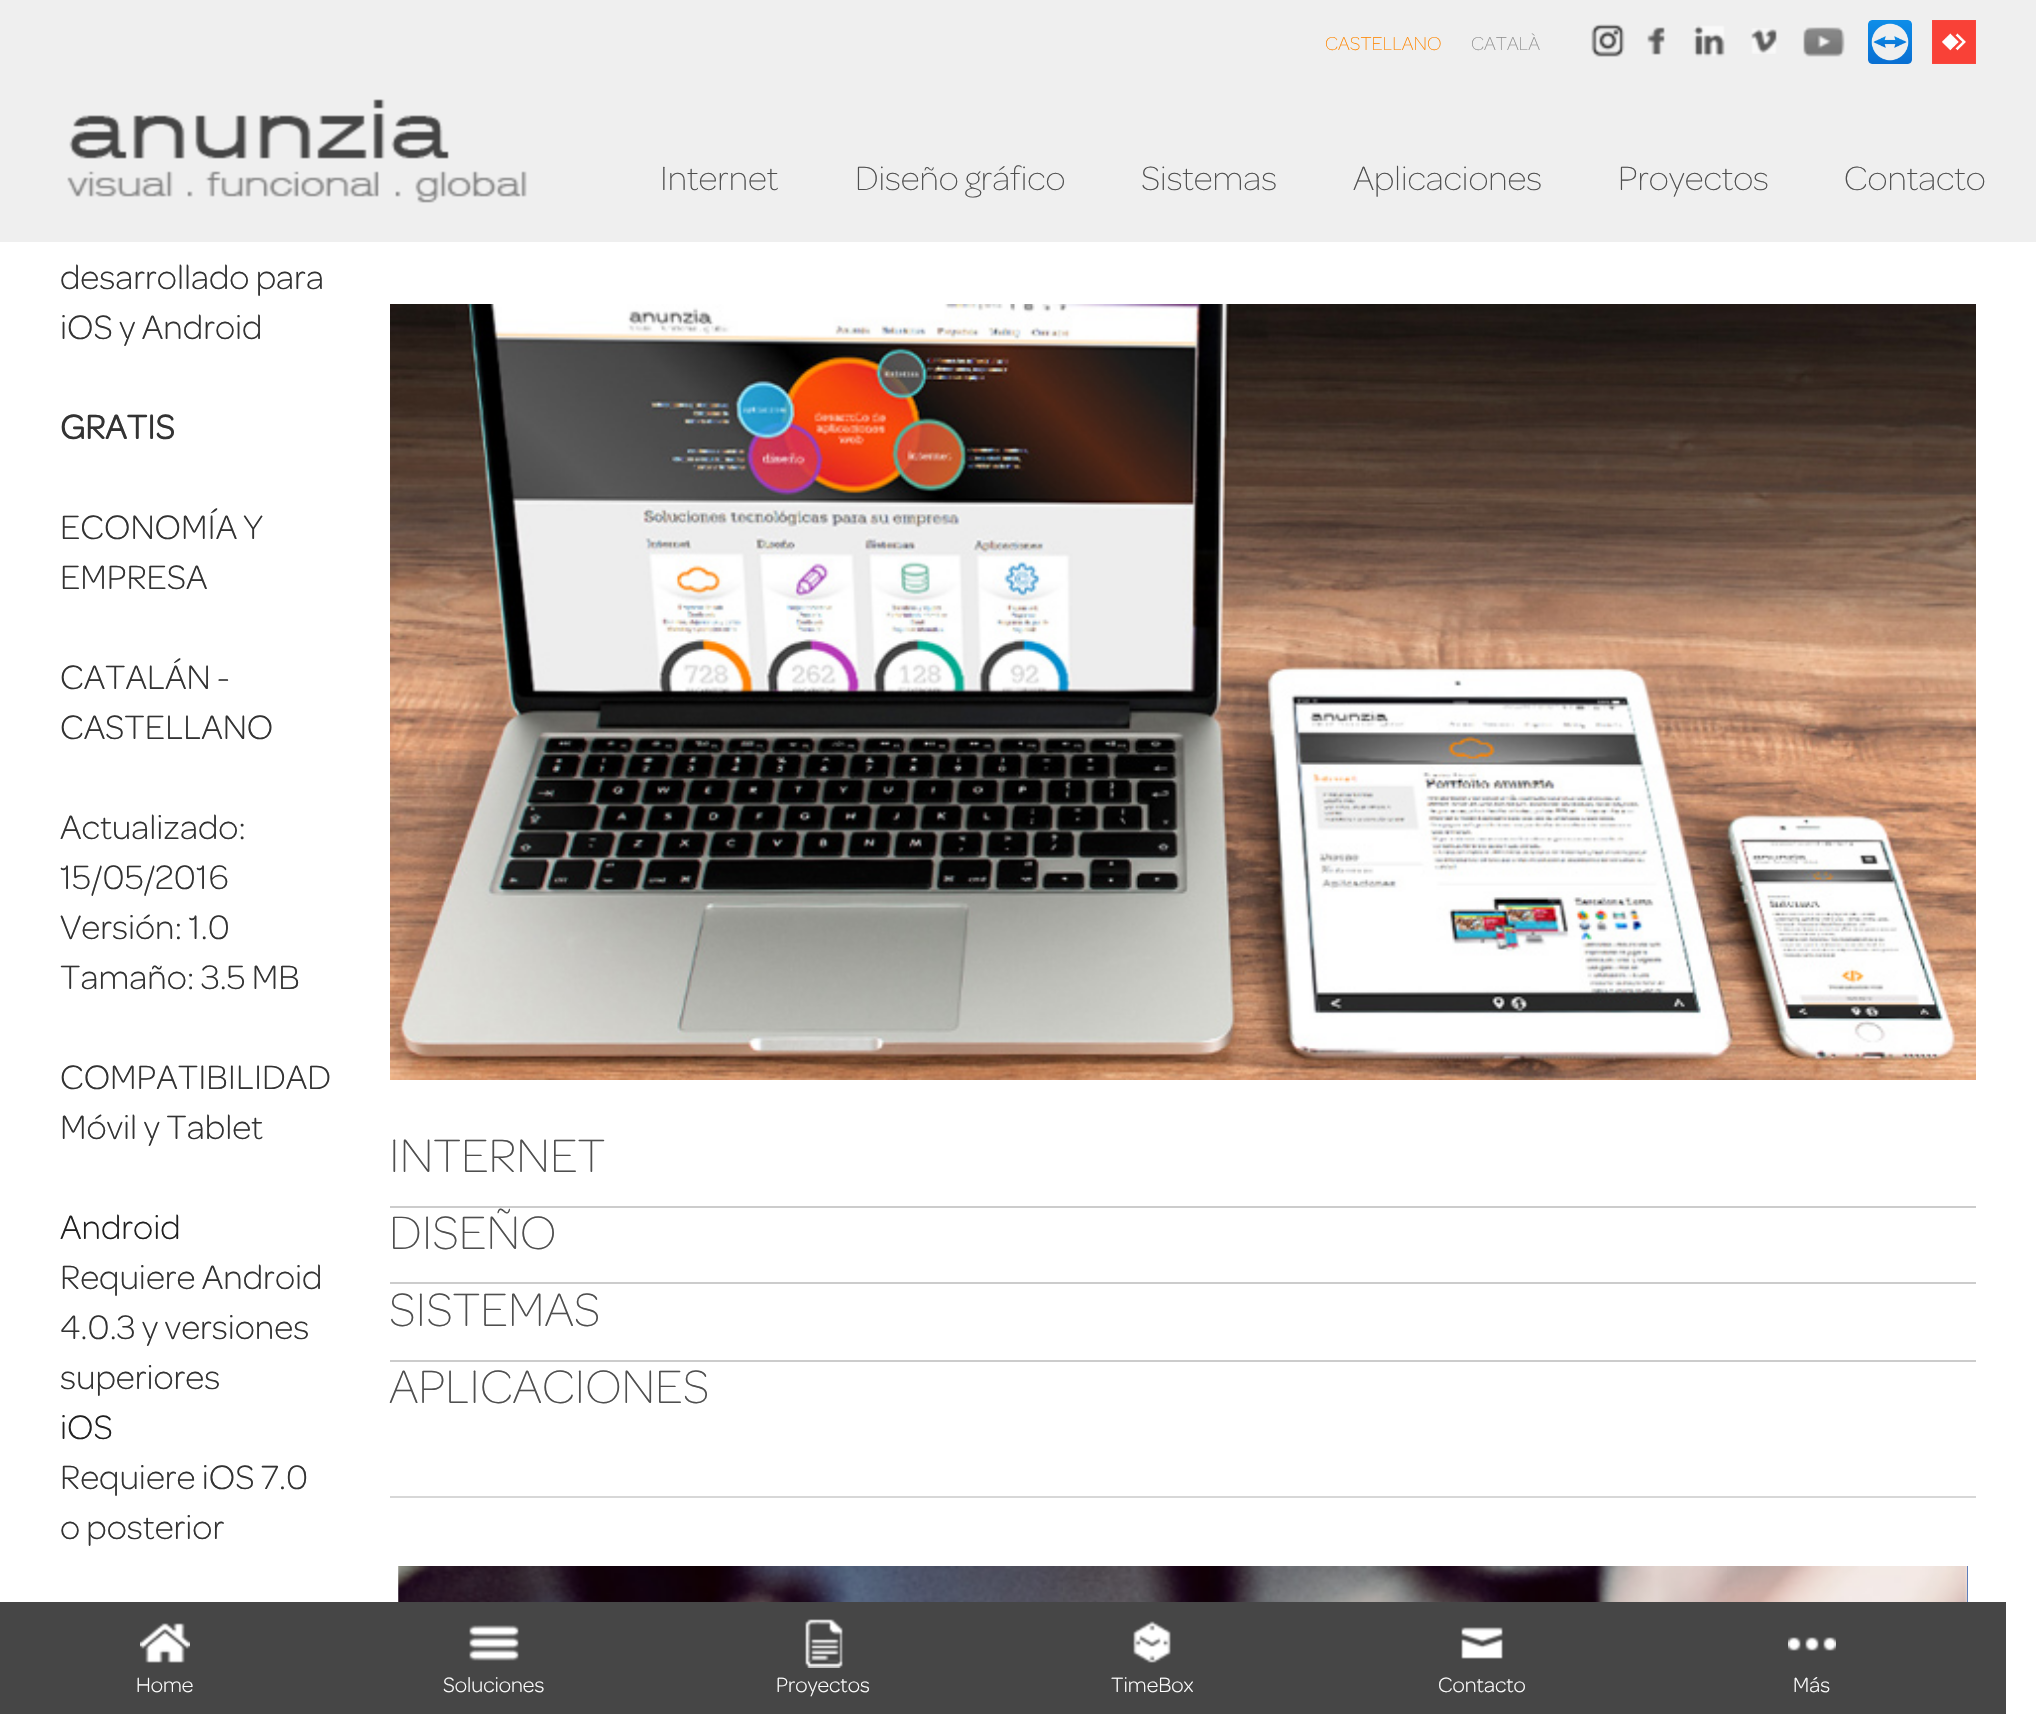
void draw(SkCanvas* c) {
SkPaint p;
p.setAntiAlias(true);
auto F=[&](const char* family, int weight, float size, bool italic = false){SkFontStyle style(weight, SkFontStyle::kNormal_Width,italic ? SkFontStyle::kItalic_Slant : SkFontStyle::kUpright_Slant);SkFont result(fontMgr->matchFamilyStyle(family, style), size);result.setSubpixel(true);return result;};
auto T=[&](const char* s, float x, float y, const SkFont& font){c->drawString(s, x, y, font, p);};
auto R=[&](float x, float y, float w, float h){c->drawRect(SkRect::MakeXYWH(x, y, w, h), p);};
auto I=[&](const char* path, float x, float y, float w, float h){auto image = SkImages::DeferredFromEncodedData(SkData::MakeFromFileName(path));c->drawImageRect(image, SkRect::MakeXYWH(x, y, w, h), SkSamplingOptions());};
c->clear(0xffffffff);
p.setColor(0xffefefef);
R(0,0,2036,242);
auto f1 = F("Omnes",200,20);
p.setColor(0xffff8600);
T("CASTELLANO",1325,50,f1);
p.setColor(0xff8f8f8f);
T("CATALÀ",1471,50,f1);
I("1.png",1591,24,34,33);
I("2.png",1647,27,18,28);
I("3.png",1693,25,32,32);
I("4.png",1751,28,26,26);
I("5.png",1803,27,42,30);
I("6.png",1868,20,44,44);
I("7.png",1932,20,44,44);
I("8.png",67,99,460,104);
auto f2 = F("Omnes",200,36);
p.setColor(0xff4f4f4f);
T("Internet",660,190,f2);
T("Diseño gráfico",855,190,f2);
T("Sistemas",1141,190,f2);
T("Aplicaciones",1353,190,f2);
T("Proyectos",1618,190,f2);
T("Contacto",1844,190,f2);
auto f3 = F("Omnes",300,36);
p.setColor(0xff333333);
T("desarrollado para",60,289,f3);
T("iOS y Android",60,339,f3);
auto f4 = F("Omnes",700,36);
T("GRATIS",60,439,f4);
T("ECONOMÍA Y",60,539,f3);
T("EMPRESA",60,589,f3);
T("CATALÁN -",60,689,f3);
T("CASTELLANO",60,739,f3);
T("Actualizado:",60,839,f3);
T("15/05/2016",60,889,f3);
T("Versión: 1.0",60,939,f3);
T("Tamaño: 3.5 MB",60,989,f3);
T("COMPATIBILIDAD",60,1089,f3);
T("Móvil y Tablet",60,1139,f3);
p.setColor(0xff212121);
T("Android",60,1239,f3);
p.setColor(0xff333333);
T("Requiere Android",60,1289,f3);
T("4.0.3 y versiones",60,1339,f3);
T("superiores",60,1389,f3);
p.setColor(0xff212121);
T("iOS",60,1439,f3);
p.setColor(0xff333333);
T("Requiere iOS 7.0",60,1489,f3);
T("o posterior",60,1539,f3);
I("9.png",390,304,1586,776);
auto f5 = F("Omnes",200,50);
p.setColor(0xff4f4f4f);
T("INTERNET",389,1172,f5);
p.setColor(0xffcccccc);
R(390,1206,1586,2);
p.setColor(0xff4f4f4f);
T("DISEÑO",389,1249,f5);
p.setColor(0xffcccccc);
R(390,1282,1586,2);
p.setColor(0xff4f4f4f);
T("SISTEMAS",389,1326,f5);
p.setColor(0xffcccccc);
R(390,1360,1586,2);
p.setColor(0xff4f4f4f);
T("APLICACIONES",389,1403,f5);
p.setColor(0xffd7d7d7);
R(390,1496,1586,2);
I("10.png",398,1566,1569,36);
I("11.png",1967,1566,1,36);
p.setColor(0xff464646);
R(0,1602,2006,112);
I("12.png",140,1623,50,40);
auto f6 = F("Omnes",300,22);
p.setColor(0xffffffff);
T("Home",136,1692,f6);
I("13.png",469,1625,50,36);
T("Soluciones",443,1692,f6);
I("14.png",805,1619,38,49);
T("Proyectos",776,1692,f6);
I("15.png",1133,1621,38,42);
T("TimeBox",1111,1692,f6);
I("16.png",1461,1627,42,32);
T("Contacto",1438,1692,f6);
I("17.png",1788,1637,48,14);
T("Más",1793,1692,f6);
}
